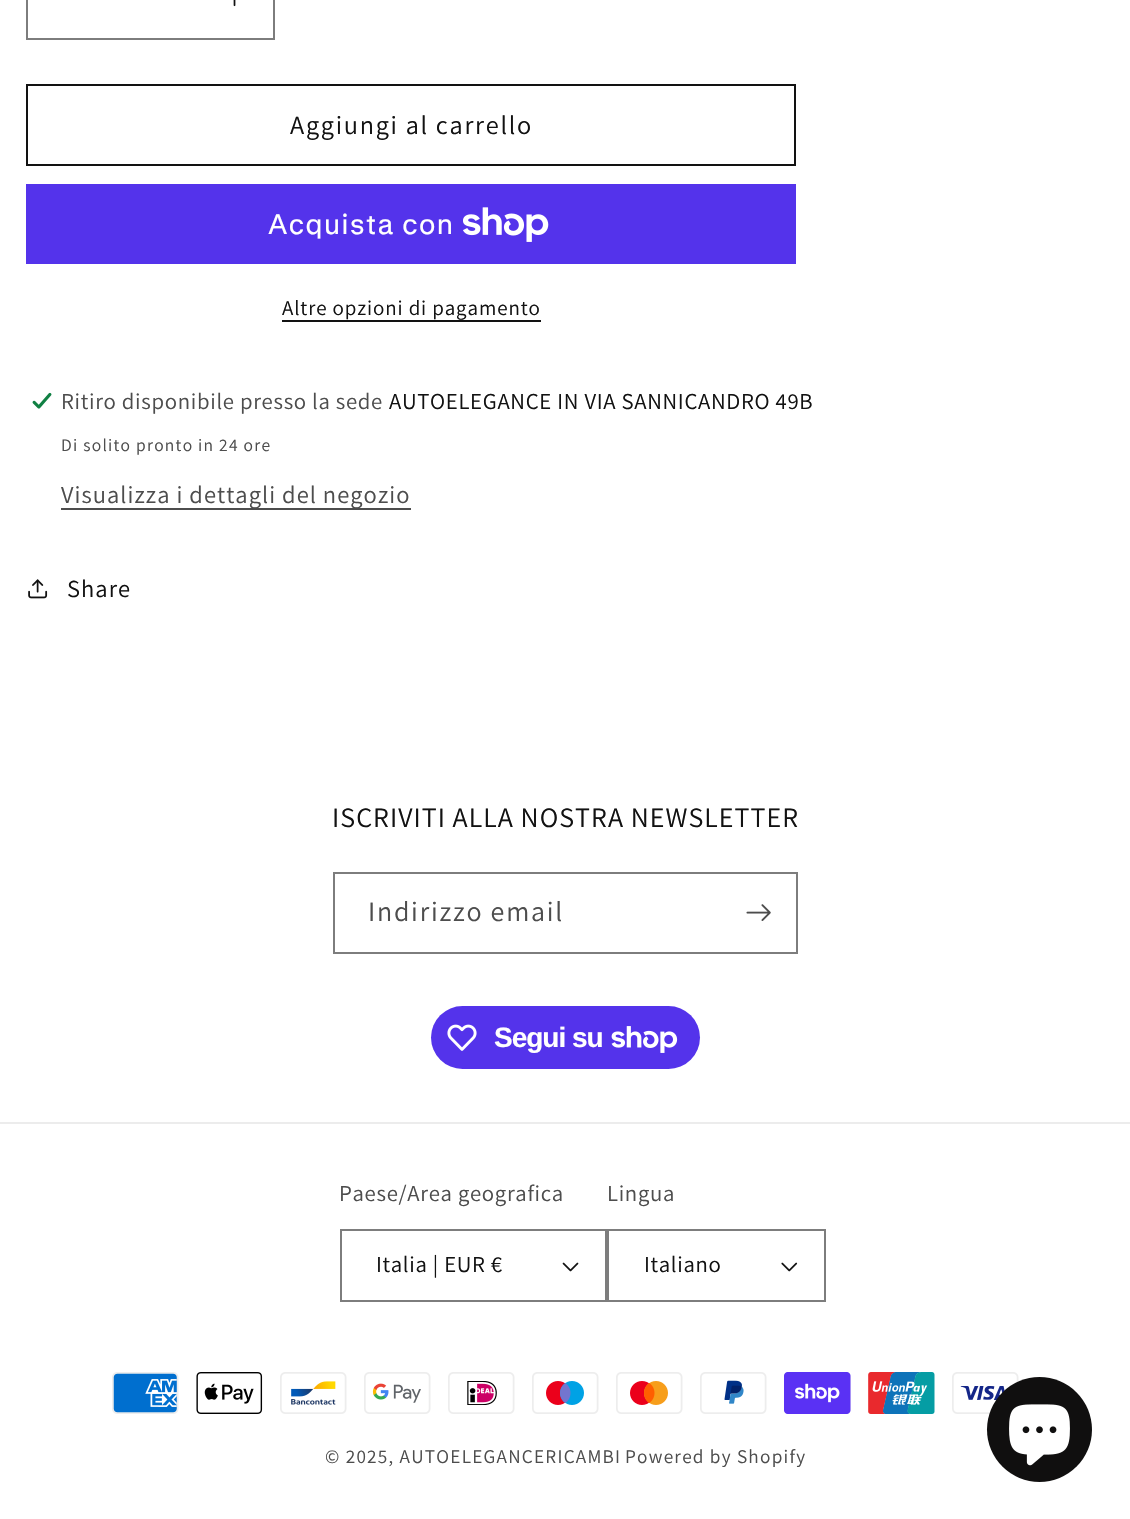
void draw(SkCanvas* c) {
SkPaint p;
p.setAntiAlias(true);
auto F=[&](const char* family, int weight, float size, bool italic = false){SkFontStyle style(weight, SkFontStyle::kNormal_Width,italic ? SkFontStyle::kItalic_Slant : SkFontStyle::kUpright_Slant);SkFont result(fontMgr->matchFamilyStyle(family, style), size);result.setSubpixel(true);return result;};
auto L=[&](const char* s, float x, float y, const SkFont& font, const SkPaint& ink, float letter, float word){std::vector<SkGlyphID> glyphs(font.countText(s, strlen(s), SkTextEncoding::kUTF8));std::vector<float> xs(glyphs.size());font.textToGlyphs(s, strlen(s), SkTextEncoding::kUTF8, glyphs);font.getXPos(glyphs, xs, x);float extra = 0;for (size_t i = 0; i < glyphs.size(); i++) {xs[i] += extra;extra += letter + word * (glyphs[i] == font.unicharToGlyph(' '));}c->drawTextBlob(SkTextBlob::MakeFromPosHGlyphs(glyphs, xs, y, font), 0, 0, ink);};
auto R=[&](float x, float y, float w, float h){c->drawRect(SkRect::MakeXYWH(x, y, w, h), p);};
auto Q=[&](float x, float y, float w, float h, float radius){c->drawRoundRect(SkRect::MakeXYWH(x, y, w, h), radius, radius, p);};
auto I=[&](const char* path, float x, float y, float w, float h){auto image = SkImages::DeferredFromEncodedData(SkData::MakeFromFileName(path));c->drawImageRect(image, SkRect::MakeXYWH(x, y, w, h), SkSamplingOptions());};
c->clear(0xffffffff);
I("1.png",233,0,3,7);
p.setStroke(true);
p.setStrokeWidth(2);
p.setColor(0xff7d7d7d);
c->drawRect(SkRect::MakeXYWH(27,-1,247,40),p);
p.setColor(0xff121212);
c->drawRect(SkRect::MakeXYWH(27,85,768,80),p);
auto f1 = F("Assistant",400,26.25);
p.setStroke(false);
L("Aggiungi al carrello",290,134,f1,p,1.75,0);
p.setColor(0xff5433eb);
R(26,184,770,80);
auto f2 = F("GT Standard",400,28);
p.setColor(0xffffffff);
L("Acquista con",268,234,f2,p,1.05,0);
I("2.png",463,207,86,35);
auto f3 = F("Assistant",400,21);
p.setColor(0xff121212);
L("Altre opzioni di pagamento",282,315,f3,p,.9,0);
R(282,320,259,2);
I("3.png",32,392,20,17);
auto f4 = F("Assistant",400,22.75);
p.setColor(0xff4d4d4d);
L("Ritiro disponibile presso la sede",61,409,f4,p,.7,0);
p.setColor(0xff121212);
L("AUTOELEGANCE IN VIA SANNICANDRO 49B",389,409,f4,p,.7,0);
auto f5 = F("Assistant",400,17.5);
p.setColor(0xff4d4d4d);
L("Di solito pronto in 24 ore",61,451,f5,p,1.25,0);
R(61,508,350,2);
auto f6 = F("Assistant",400,24.5);
L("Visualizza i dettagli del negozio",61,503,f6,p,1.05,0);
I("4.png",28,579,20,20);
p.setColor(0xff121212);
L("Share",67,597,f6,p,1.05,0);
auto f7 = F("Assistant",400,28);
L("ISCRIVITI ALLA NOSTRA NEWSLETTER",332,827,f7,p,1.05,0);
p.setStroke(true);
p.setColor(0xff7d7d7d);
c->drawRect(SkRect::MakeXYWH(334,873,463,80),p);
p.setStroke(false);
p.setColor(0xff4d4d4d);
L("Indirizzo email",368,921,f7,p,1.75,0);
I("5.png",746,904,25,17);
p.setColor(0xff5433eb);
Q(431,1006,269,63,31.5);
I("6.png",447,1024,30,27);
auto f8 = F("Liberation Sans",700,28);
p.setColor(0xffffffff);
L("Segui su",494,1047,f8,p,-1,0);
I("7.png",611,1026,67,27);
p.setColor(0xffececec);
R(0,1122,1130,2);
p.setColor(0xff4d4d4d);
L("Paese/Area geografica",339,1201,f4,p,.7,0);
I("8.png",562,1262,17,10);
p.setStroke(true);
p.setColor(0xff7d7d7d);
c->drawRect(SkRect::MakeXYWH(341,1230,265,71),p);
p.setStroke(false);
p.setColor(0xff121212);
L("Italia | EUR €",376,1272,f4,p,.7,0);
p.setColor(0xff4d4d4d);
L("Lingua",607,1201,f4,p,.7,0);
I("9.png",781,1262,17,10);
p.setStroke(true);
p.setColor(0xff7d7d7d);
c->drawRect(SkRect::MakeXYWH(608,1230,217,71),p);
p.setStroke(false);
p.setColor(0xff121212);
L("Italiano",644,1272,f4,p,.7,0);
I("10.png",112,1372,67,42);
I("11.png",196,1372,67,42);
I("12.png",280,1372,67,42);
I("13.png",364,1372,67,42);
I("14.png",448,1372,67,42);
I("15.png",532,1372,67,42);
I("16.png",616,1372,67,42);
I("17.png",700,1372,67,42);
I("18.png",784,1372,67,42);
I("19.png",868,1372,67,42);
I("20.png",952,1372,67,42);
auto f9 = F("Assistant",400,19.25);
p.setColor(0xff4d4d4d);
L("© 2025, AUTOELEGANCERICAMBI",325,1463,f9,p,1.25,0);
L("Powered by Shopify",625,1463,f9,p,1.25,0);
p.setColor(0xff100f0f);
c->drawCircle(1039.5,1429.5,52.5,p);
I("21.png",1009,1404,61,62);
}
